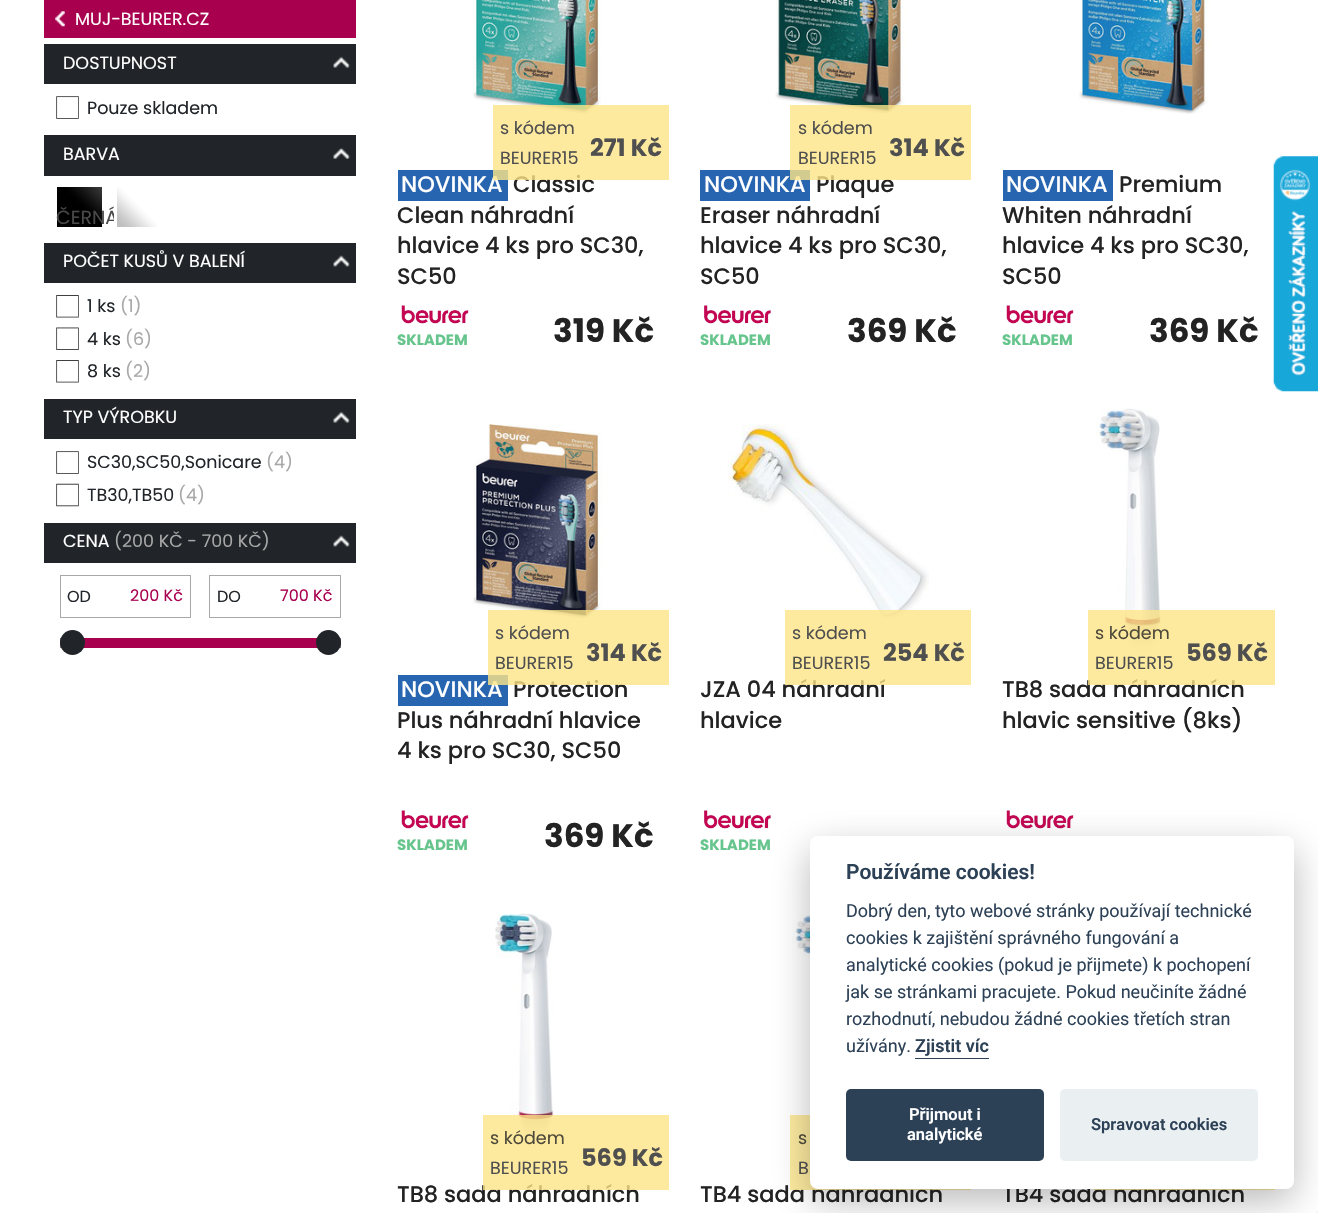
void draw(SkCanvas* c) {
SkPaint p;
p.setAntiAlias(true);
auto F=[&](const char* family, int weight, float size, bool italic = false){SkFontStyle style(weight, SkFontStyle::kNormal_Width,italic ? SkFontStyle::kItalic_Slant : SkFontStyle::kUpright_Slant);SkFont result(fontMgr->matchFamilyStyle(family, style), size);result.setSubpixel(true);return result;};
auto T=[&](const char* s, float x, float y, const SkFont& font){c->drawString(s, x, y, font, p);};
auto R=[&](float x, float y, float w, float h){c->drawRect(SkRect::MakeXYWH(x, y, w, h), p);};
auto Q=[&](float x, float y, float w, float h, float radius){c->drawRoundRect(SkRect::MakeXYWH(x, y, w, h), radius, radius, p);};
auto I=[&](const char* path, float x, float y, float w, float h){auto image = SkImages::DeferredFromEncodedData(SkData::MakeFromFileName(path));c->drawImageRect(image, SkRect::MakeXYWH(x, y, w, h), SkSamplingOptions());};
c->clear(0xffffffff);
p.setColor(0xffa8004f);
R(44,0,312,38);
I("1.png",55,11,10,16);
auto f1 = F("Poppins",400,17.5);
p.setColor(0xffffffff);
T("MUJ-BEURER.CZ",75,25,f1);
p.setColor(0xff212529);
R(44,44,312,40);
p.setColor(0xffffffff);
T("DOSTUPNOST",63,69,f1);
I("2.png",333,56,17,12);
I("3.png",56,96,23,23);
p.setColor(0xff212529);
T("Pouze skladem",87,114,f1);
R(44,135,312,41);
p.setColor(0xffffffff);
T("BARVA",63,160,f1);
I("4.png",333,148,17,11);
p.setColor(0xff000000);
R(57,187,45,40);
I("5.png",65,187,37,34);
auto f2 = F("Poppins",400,19);
p.setColor(0xff494949);
T("ČERNÁ",56,224,f2);
p.setColor(0xffffffff);
R(117,223,1,1);
I("6.png",117,187,40,40);
p.setStroke(true);
p.setStrokeWidth(3);
c->drawRect(SkRect::MakeXYWH(115.5,185.5,48,43),p);
p.setStroke(false);
p.setColor(0xff212529);
R(44,243,312,40);
p.setColor(0xffffffff);
T("POČET KUSŮ V BALENÍ",63,267,f1);
I("7.png",333,255,17,12);
I("8.png",56,295,23,23);
p.setColor(0xff212529);
T("1 ks",87,312,f1);
p.setColor(0xffa8a8a8);
T("(1)",120,312,f1);
I("9.png",56,327,23,23);
p.setColor(0xff212529);
T("4 ks",87,345,f1);
p.setColor(0xffa8a8a8);
T("(6)",125,345,f1);
I("8.png",56,360,23,23);
p.setColor(0xff212529);
T("8 ks",87,377,f1);
p.setColor(0xffa8a8a8);
T("(2)",125,377,f1);
p.setColor(0xff212529);
R(44,399,312,40);
p.setColor(0xffffffff);
T("TYP VÝROBKU",63,423,f1);
I("2.png",333,411,17,12);
I("3.png",56,451,23,23);
p.setColor(0xff212529);
T("SC30,SC50,Sonicare",87,468,f1);
p.setColor(0xffa8a8a8);
T("(4)",266,468,f1);
I("10.png",56,483,23,24);
p.setColor(0xff212529);
T("TB30,TB50",87,501,f1);
p.setColor(0xffa8a8a8);
T("(4)",178,501,f1);
p.setColor(0xff212529);
R(44,523,312,40);
p.setColor(0xffffffff);
T("CENA",63,547,f1);
p.setColor(0xffa8a8a8);
T("(200 KČ - 700 KČ)",114,547,f1);
I("7.png",333,535,17,12);
p.setStroke(true);
p.setStrokeWidth(1);
c->drawRect(SkRect::MakeXYWH(60.5,575.5,130,42),p);
auto f3 = F("Poppins",400,16);
p.setStroke(false);
p.setColor(0xff212529);
T("OD",67,602,f3);
p.setColor(0xffa8004f);
T("200 Kč",130,601,f3);
p.setStroke(true);
p.setColor(0xffa8a8a8);
c->drawRect(SkRect::MakeXYWH(209.5,575.5,131,42),p);
p.setStroke(false);
p.setColor(0xff212529);
T("DO",217,602,f3);
p.setColor(0xffa8004f);
T("700 Kč",280,601,f3);
p.setColor(0xff808080);
R(60,638,281,10);
p.setColor(0xffa8004f);
Q(60,638,281,10,5);
p.setColor(0xff212529);
c->drawCircle(72.5,642.5,12.5,p);
c->drawCircle(328.5,642.5,12.5,p);
I("11.png",473,0,129,114);
p.setColor(0xff2765b0);
R(398,170,110,31);
auto f4 = F("Poppins",500,22.5);
p.setColor(0xffffffff);
T("NOVINKA",401,192,f4);
p.setColor(0xff232323);
T("Classic",513,192,f4);
p.setColor(0xccfce587);
R(493,105,176,74);
R(493,179,176,1);
p.setColor(0xff4f4f4f);
T("s kódem",500,134,f1);
T("BEURER15",500,164,f1);
auto f5 = F("Poppins",700,24);
T("271 Kč",590,156,f5);
p.setColor(0xff232323);
T("Clean náhradní",397,223,f4);
T("hlavice 4 ks pro SC30,",397,253,f4);
T("SC50",397,284,f4);
I("12.png",401,305,68,19);
auto f6 = F("Poppins",700,32.5);
T("319 Kč",553,342,f6);
auto f7 = F("Poppins",700,15);
p.setColor(0xff66c58d);
T("SKLADEM",397,345,f7);
I("13.png",775,0,130,114);
p.setColor(0xff2765b0);
R(700,170,110,31);
p.setColor(0xffffffff);
T("NOVINKA",704,192,f4);
p.setColor(0xff232323);
T("Plaque",816,192,f4);
p.setColor(0xccfce587);
R(790,105,181,74);
R(790,179,181,1);
p.setColor(0xff4f4f4f);
T("s kódem",798,134,f1);
T("BEURER15",798,164,f1);
T("314 Kč",889,156,f5);
p.setColor(0xff232323);
T("Eraser náhradní",700,223,f4);
T("hlavice 4 ks pro SC30,",700,253,f4);
T("SC50",700,284,f4);
I("14.png",704,305,67,19);
T("369 Kč",847,342,f6);
p.setColor(0xff66c58d);
T("SKLADEM",700,345,f7);
I("15.png",1079,0,130,114);
p.setColor(0xff2765b0);
R(1003,170,110,31);
p.setColor(0xffffffff);
T("NOVINKA",1006,192,f4);
p.setColor(0xff232323);
T("Premium",1119,192,f4);
T("Whiten náhradní",1002,223,f4);
T("hlavice 4 ks pro SC30,",1002,253,f4);
T("SC50",1002,284,f4);
I("12.png",1006,305,68,19);
T("369 Kč",1149,342,f6);
p.setColor(0xff66c58d);
T("SKLADEM",1002,345,f7);
I("16.png",473,424,130,195);
p.setColor(0xff2765b0);
R(398,675,110,31);
p.setColor(0xffffffff);
T("NOVINKA",401,697,f4);
p.setColor(0xff232323);
T("Protection",513,697,f4);
p.setColor(0xccfce587);
R(488,610,181,74);
R(488,684,181,1);
p.setColor(0xff4f4f4f);
T("s kódem",495,639,f1);
T("BEURER15",495,669,f1);
T("314 Kč",586,661,f5);
p.setColor(0xff232323);
T("Plus náhradní hlavice",397,728,f4);
T("4 ks pro SC30, SC50",397,758,f4);
I("12.png",401,810,68,19);
T("369 Kč",544,847,f6);
p.setColor(0xff66c58d);
T("SKLADEM",397,850,f7);
I("17.png",727,424,202,195);
p.setColor(0xff232323);
T("JZA 04 náhradní",700,697,f4);
p.setColor(0xccfce587);
R(785,610,186,74);
R(785,684,186,1);
p.setColor(0xff4f4f4f);
T("s kódem",792,639,f1);
T("BEURER15",792,669,f1);
T("254 Kč",883,661,f5);
p.setColor(0xff232323);
T("hlavice",700,728,f4);
I("14.png",704,810,67,19);
p.setColor(0xff66c58d);
T("SKLADEM",700,850,f7);
I("18.png",1096,408,66,245);
p.setColor(0xff232323);
T("TB8 sada náhradních",1002,697,f4);
p.setColor(0xccfce587);
R(1088,610,187,74);
R(1088,684,187,1);
p.setColor(0xff4e4a3b);
T("s kódem",1095,639,f1);
p.setColor(0xff4f4f4f);
T("BEURER15",1095,669,f1);
T("569 Kč",1186,661,f5);
p.setColor(0xff232323);
T("hlavic sensitive (8ks)",1002,728,f4);
I("12.png",1006,810,68,19);
I("19.png",495,913,59,228);
T("TB8 sada náhradních",397,1202,f4);
p.setColor(0xccfce587);
R(483,1115,186,74);
R(483,1189,186,1);
p.setColor(0xff4e4a3b);
T("s kódem",490,1144,f1);
p.setColor(0xff4f4f4f);
T("BEURER15",490,1174,f1);
T("569 Kč",581,1166,f5);
I("20.png",792,913,18,245);
p.setColor(0xff232323);
T("TB4 sada náhradních",700,1202,f4);
p.setColor(0xccfce587);
R(790,1115,28,74);
R(790,1189,181,1);
p.setColor(0xff4e4a3b);
T("s",798,1144,f1);
p.setColor(0xff4f4f4f);
T("B",798,1174,f1);
p.setColor(0xff232323);
T("TB4 sada náhradních",1002,1202,f4);
p.setColor(0xccfce587);
R(1094,1189,181,1);
I("21.png",1273,156,45,236);
p.setColor(0x47020203);
p.setMaskFilter(SkMaskFilter::MakeBlur(kNormal_SkBlurStyle, 19));
c->drawRoundRect(SkRect::MakeXYWH(810,849,484,352),8,8,p);
p.setMaskFilter(nullptr);
p.setColor(0xffffffff);
Q(810,836,484,353,8);
auto f8 = F("Roboto",600,21);
p.setColor(0xff2d4156);
T("Používáme cookies!",846,879,f8);
auto f9 = F("Roboto",400,18);
T("Dobrý den, tyto webové stránky používají technické",846,917,f9);
T("cookies k zajištění správného fungování a",846,944,f9);
T("analytické cookies (pokud je přijmete) k pochopení",846,971,f9);
T("jak se stránkami pracujete. Pokud neučiníte žádné",846,998,f9);
T("rozhodnutí, nebudou žádné cookies třetích stran",846,1025,f9);
T("užívány.",846,1052,f9);
auto f10 = F("Roboto",600,18);
T("Zjistit víc",915,1052,f10);
R(915,1058,74,1);
Q(846,1089,198,72,5);
auto f11 = F("Roboto",600,16.5);
p.setColor(0xffffffff);
T("Přijmout i",909,1120,f11);
T("analytické",907,1140,f11);
p.setColor(0xffeaeff2);
Q(1060,1089,198,72,5);
p.setColor(0xff2d4156);
T("Spravovat cookies",1091,1130,f11);
p.setColor(0xfff5f5f5);
R(1316,1211,2,2);
}
